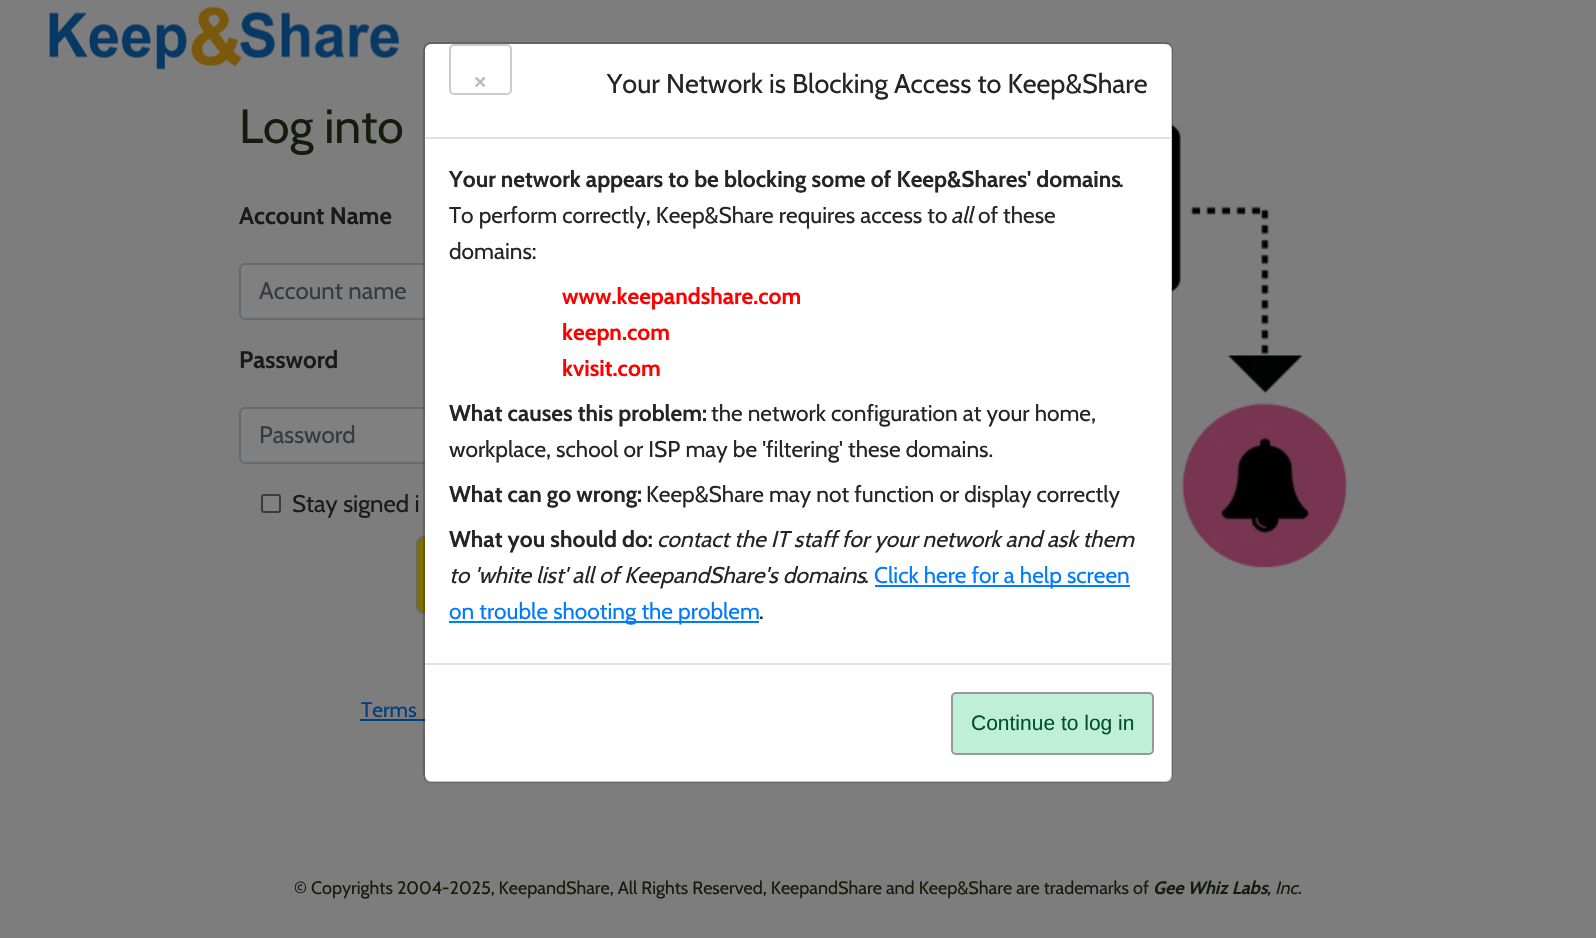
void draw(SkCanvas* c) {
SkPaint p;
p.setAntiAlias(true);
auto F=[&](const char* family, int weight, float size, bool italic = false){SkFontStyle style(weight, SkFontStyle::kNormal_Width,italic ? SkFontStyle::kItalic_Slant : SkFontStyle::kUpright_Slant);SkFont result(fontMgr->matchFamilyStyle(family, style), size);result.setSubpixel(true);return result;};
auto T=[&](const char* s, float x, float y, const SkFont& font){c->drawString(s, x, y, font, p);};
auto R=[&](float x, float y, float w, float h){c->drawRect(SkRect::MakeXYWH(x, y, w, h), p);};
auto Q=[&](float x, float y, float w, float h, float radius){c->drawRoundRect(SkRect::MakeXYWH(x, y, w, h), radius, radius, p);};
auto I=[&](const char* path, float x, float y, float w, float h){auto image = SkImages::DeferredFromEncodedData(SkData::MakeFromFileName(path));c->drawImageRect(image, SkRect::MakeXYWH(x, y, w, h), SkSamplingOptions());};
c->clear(0xff7d7d7d);
I("1.png",49,6,351,64);
auto f1 = F("Cabin",400,48);
p.setColor(0xff161b0c);
T("Log into",239,143,f1);
auto f2 = F("Cabin",700,24);
p.setColor(0xff1a1a1a);
T("Account Name",239,224,f2);
p.setColor(0xff808080);
c->drawRoundRect(SkRect::MakeXYWH(240,264,535,55),5,5,p);
p.setStroke(true);
p.setStrokeWidth(2);
p.setColor(0xff676a6d);
c->drawRoundRect(SkRect::MakeXYWH(240,264,535,55),5,5,p);
auto f3 = F("Cabin",400,24);
p.setStroke(false);
p.setColor(0xff363b3f);
T("Account name",259,299,f3);
p.setColor(0xff1a1a1a);
T("Password",239,368,f2);
p.setColor(0xff808080);
c->drawRoundRect(SkRect::MakeXYWH(240,408,535,55),5,5,p);
p.setStroke(true);
p.setColor(0xff676a6d);
c->drawRoundRect(SkRect::MakeXYWH(240,408,535,55),5,5,p);
p.setStroke(false);
p.setColor(0xff363b3f);
T("Password",259,443,f3);
p.setColor(0xff808080);
c->drawRoundRect(SkRect::MakeXYWH(262,495,18,17),2,2,p);
p.setStroke(true);
p.setColor(0xff3b3b3b);
c->drawRoundRect(SkRect::MakeXYWH(262,495,18,17),2,2,p);
p.setStroke(false);
p.setColor(0xff1a1a1a);
T("Stay signed i",292,512,f3);
p.setColor(0xff806e00);
c->drawRoundRect(SkRect::MakeXYWH(417,537,181,76),7,7,p);
p.setStroke(true);
p.setColor(0xff666666);
c->drawRoundRect(SkRect::MakeXYWH(417,537,181,76),7,7,p);
auto f4 = F("Cabin",400,21);
p.setStroke(false);
p.setColor(0xff003e80);
T("Terms",361,717,f4);
R(360,719,65,2);
I("2.png",1172,124,176,444);
p.setColor(0xffffffff);
Q(425,44,747,738,6);
p.setStroke(true);
p.setColor(0x33000000);
c->drawRoundRect(SkRect::MakeXYWH(424,43,748,739),7,7,p);
p.setStroke(false);
p.setColor(0xffdee2e6);
R(425,137,747,2);
p.setStroke(true);
p.setColor(0xffcccccc);
c->drawRoundRect(SkRect::MakeXYWH(450,45,61,49),4,4,p);
auto f5 = F("Liberation Sans",700,21);
p.setStroke(false);
p.setColor(0xffbbbbbb);
T("×",474,89,f5);
auto f6 = F("Cabin",400,27);
p.setColor(0xff252525);
T("Your Network is Blocking Access to Keep&Share",607,93,f6);
auto f7 = F("Cabin",700,22.7);
T("Your network appears to be blocking some of Keep&Shares' domains",449,187,f7);
auto f8 = F("Cabin",400,22.7);
T(".",1119,187,f8);
T("To perform correctly, Keep&Share requires access to",449,223,f8);
auto f9 = F("Cabin",400,22.7,true);
T("all",951,223,f9);
T("of these",978,223,f8);
T("domains:",449,259,f8);
p.setColor(0xffff0000);
T("www.keepandshare.com",562,304,f7);
T("keepn.com",562,340,f7);
T("kvisit.com",562,376,f7);
p.setColor(0xff252525);
T("What causes this problem:",449,421,f7);
T("the network configuration at your home,",711,421,f8);
T("workplace, school or ISP may be 'filtering' these domains.",449,457,f8);
T("What can go wrong:",449,502,f7);
T("Keep&Share may not function or display correctly",646,502,f8);
T("What you should do:",449,547,f7);
T("contact the IT staff for your network and ask them",657,547,f9);
T("to 'white list' all of KeepandShare's domains",449,583,f9);
p.setColor(0xff007bff);
R(875,585,255,2);
T("Click here for a help screen",874,583,f8);
p.setColor(0xff252525);
T(".",864,583,f8);
p.setColor(0xff007bff);
R(449,621,310,2);
T("on trouble shooting the problem",449,619,f8);
p.setColor(0xff252525);
T(".",759,619,f8);
p.setColor(0xffdee2e6);
R(425,663,747,2);
p.setColor(0xffbfefd7);
c->drawRoundRect(SkRect::MakeXYWH(952,693,201,61),4,4,p);
p.setStroke(true);
p.setColor(0xff999999);
c->drawRoundRect(SkRect::MakeXYWH(952,693,201,61),4,4,p);
auto f10 = F("Liberation Sans",400,21);
p.setStroke(false);
p.setColor(0xff005229);
T("Continue to log in",971,730,f10);
auto f11 = F("Cabin",400,18);
p.setColor(0xff161b0c);
T("© Copyrights 2004-2025, KeepandShare, All Rights Reserved, KeepandShare and Keep&Share are trademarks of",294,894,f11);
auto f12 = F("Cabin",700,18,true);
T("Gee Whiz Labs",1153,894,f12);
auto f13 = F("Cabin",400,18,true);
T(", Inc.",1267,894,f13);
}
